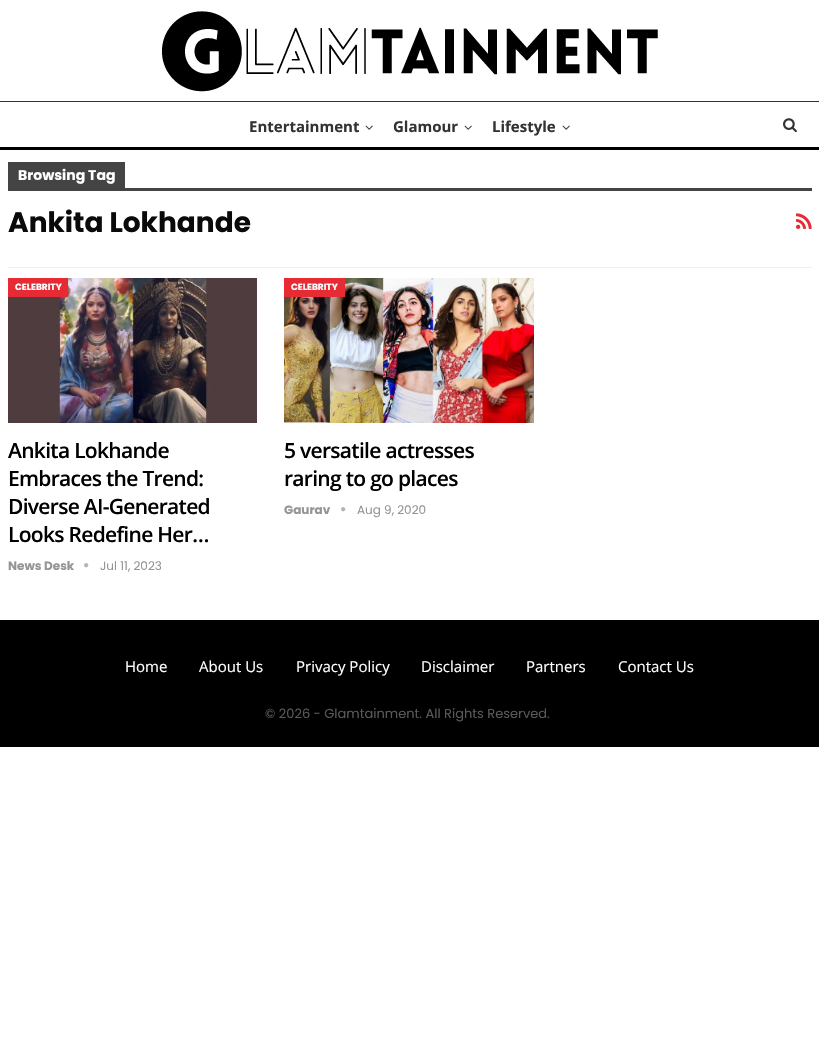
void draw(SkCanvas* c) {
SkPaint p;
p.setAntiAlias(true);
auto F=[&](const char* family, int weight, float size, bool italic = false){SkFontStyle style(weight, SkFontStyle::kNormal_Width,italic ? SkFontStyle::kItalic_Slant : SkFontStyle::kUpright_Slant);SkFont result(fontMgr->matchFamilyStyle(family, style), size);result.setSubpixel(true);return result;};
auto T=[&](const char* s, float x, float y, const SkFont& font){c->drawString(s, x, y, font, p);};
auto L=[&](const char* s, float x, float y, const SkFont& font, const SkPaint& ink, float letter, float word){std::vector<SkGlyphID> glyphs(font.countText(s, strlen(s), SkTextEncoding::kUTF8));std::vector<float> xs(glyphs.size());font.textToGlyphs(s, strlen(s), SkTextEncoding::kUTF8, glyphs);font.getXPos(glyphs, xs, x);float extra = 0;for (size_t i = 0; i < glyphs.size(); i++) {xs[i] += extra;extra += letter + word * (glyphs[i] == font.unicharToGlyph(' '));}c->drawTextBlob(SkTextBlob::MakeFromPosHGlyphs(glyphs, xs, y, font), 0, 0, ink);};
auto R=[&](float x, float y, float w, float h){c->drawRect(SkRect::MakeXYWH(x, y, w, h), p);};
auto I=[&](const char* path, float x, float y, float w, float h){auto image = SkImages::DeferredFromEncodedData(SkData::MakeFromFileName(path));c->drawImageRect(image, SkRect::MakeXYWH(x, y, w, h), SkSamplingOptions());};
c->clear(0xffffffff);
I("1.png",162,11,496,81);
p.setColor(0xff333333);
R(0,101,819,1);
p.setColor(0xff000000);
R(0,147,819,3);
auto f1 = F("Open Sans",700,15);
p.setColor(0xff333333);
T("Entertainment",249,132,f1);
I("2.png",365,125,8,5);
T("Glamour",393,132,f1);
I("2.png",464,125,8,5);
T("Lifestyle",492,132,f1);
I("2.png",562,125,8,5);
I("3.png",783,118,14,15);
p.setColor(0xfff0f0f0);
R(8,267,804,1);
p.setColor(0xff444444);
R(8,162,117,26);
auto f2 = F("Poppins",700,14);
p.setColor(0xffffffff);
T("Browsing Tag",18,180,f2);
p.setColor(0xff444444);
R(8,188,804,3);
auto f3 = F("Poppins",700,28);
p.setColor(0xff0a0a0a);
T("Ankita Lokhande",8,232,f3);
I("4.png",796,213,16,16);
I("5.png",8,278,249,145);
p.setColor(0xffe62b34);
R(8,278,60,19);
auto f4 = F("Poppins",700,9);
p.setColor(0xffffffff);
T("CELEBRITY",15,290,f4);
auto f5 = F("Open Sans",600,21);
p.setColor(0xff000000);
L("Ankita Lokhande",8,458,f5,p,-.7,0);
L("Embraces the Trend:",8,486,f5,p,-.7,0);
L("Diverse AI-Generated",8,514,f5,p,-.7,0);
L("Looks Redefine Her…",8,542,f5,p,-.7,0);
auto f6 = F("Poppins",700,12);
p.setColor(0xff959595);
T("News Desk",8,570,f6);
I("6.png",84,563,5,5);
auto f7 = F("Poppins",400,12);
T("Jul 11, 2023",100,570,f7);
I("7.png",284,278,250,145);
p.setColor(0xffe62b34);
R(284,278,61,19);
p.setColor(0xffffffff);
T("CELEBRITY",291,290,f4);
p.setColor(0xff000000);
L("5 versatile actresses",284,458,f5,p,-.7,0);
L("raring to go places",284,486,f5,p,-.7,0);
p.setColor(0xff959595);
T("Gaurav",284,514,f6);
I("6.png",341,507,5,5);
T("Aug 9, 2020",357,514,f7);
p.setColor(0xff000000);
R(0,620,819,127);
auto f8 = F("Open Sans",400,15);
p.setColor(0xffffffff);
T("Home",125,672,f8);
T("About Us",199,672,f8);
T("Privacy Policy",296,672,f8);
T("Disclaimer",421,672,f8);
T("Partners",526,672,f8);
T("Contact Us",618,672,f8);
auto f9 = F("Poppins",400,13);
p.setColor(0xff595959);
T("© 2026 - Glamtainment. All Rights Reserved.",265,718,f9);
}
